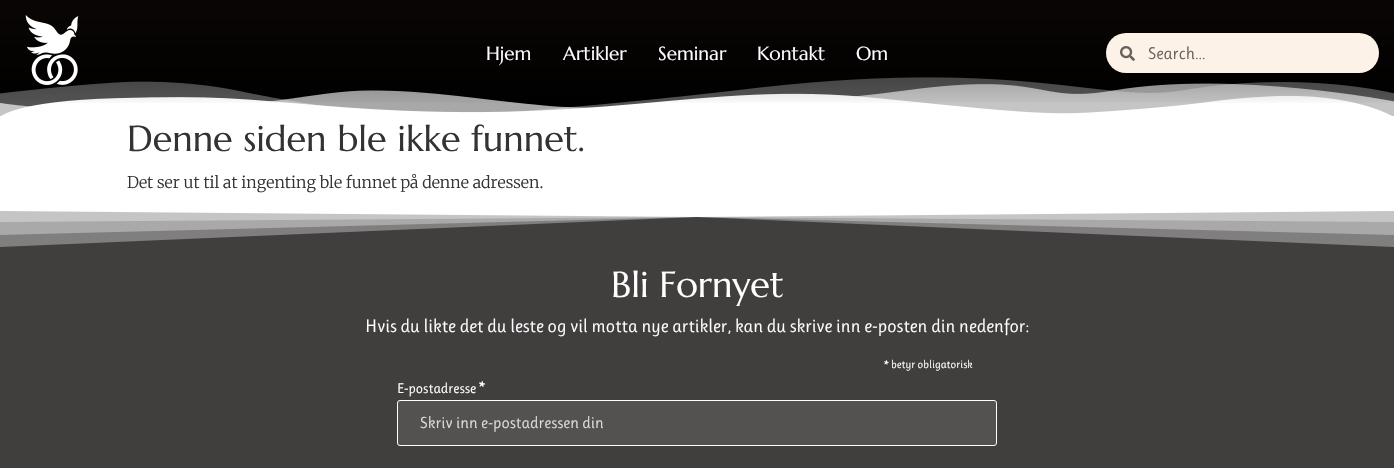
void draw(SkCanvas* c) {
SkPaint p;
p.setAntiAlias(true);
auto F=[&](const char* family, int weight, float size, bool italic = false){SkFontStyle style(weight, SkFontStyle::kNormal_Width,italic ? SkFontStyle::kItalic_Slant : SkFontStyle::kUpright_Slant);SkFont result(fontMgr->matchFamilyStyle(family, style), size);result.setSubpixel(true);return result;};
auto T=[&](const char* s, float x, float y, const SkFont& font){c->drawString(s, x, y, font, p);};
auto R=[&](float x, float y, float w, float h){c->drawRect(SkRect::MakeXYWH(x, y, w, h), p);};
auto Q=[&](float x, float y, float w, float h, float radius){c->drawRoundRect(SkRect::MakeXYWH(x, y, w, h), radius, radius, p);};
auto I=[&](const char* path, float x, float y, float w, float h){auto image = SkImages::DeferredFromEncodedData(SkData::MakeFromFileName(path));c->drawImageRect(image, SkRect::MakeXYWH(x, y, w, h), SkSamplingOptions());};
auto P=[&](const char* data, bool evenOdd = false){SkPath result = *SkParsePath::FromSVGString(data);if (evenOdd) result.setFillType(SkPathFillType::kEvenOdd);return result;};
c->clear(0xffffffff);
p.setColor(0xff000000);
R(0,0,1394,116);
I("3.png",0,77,1394,39);
{
const SkColor colors[] = {0xb00e0806,0x000e0806};
const float stops[] = {0,1};
const SkPoint ends[] = {{697,0}, {697,106}};
p.setShader(SkGradientShader::MakeLinear(ends, colors, stops, 2, SkTileMode::kClamp));
p.setAlpha(255);
}
R(0,0,1394,103);
I("1.png",25,15,54,70);
auto f1 = F("Marcellus",400,19);
p.setShader(nullptr);
p.setColor(0xffffffff);
T("Hjem",486,60,f1);
T("Artikler",563,60,f1);
T("Seminar",658,60,f1);
T("Kontakt",757,60,f1);
T("Om",856,60,f1);
p.setColor(0xfffdf2e8);
Q(1106,33,273,40,20);
I("2.png",1120,46,15,15);
auto f2 = F("Ruluko",400,17);
p.setColor(0xff65615d);
T("Search...",1148,59,f2);
auto f3 = F("Marcellus",400,36);
p.setColor(0xff333333);
T("Denne siden ble ikke funnet.",127,151,f3);
auto f4 = F("Merriweather",300,16);
T("Det ser ut til at ingenting ble funnet på denne adressen.",127,188,f4);
p.setColor(0xff413e3e);
R(0,211,1394,257);
p.setColor(0x54ffffff);
c->drawPath(P("M-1 209v38l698-30l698 30v-38z"),p);
c->drawPath(P("M-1 209v26l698-18l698 18v-26z"),p);
c->drawPath(P("M-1 209v13l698-5l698 5v-13z"),p);
p.setColor(0xffffffff);
c->drawPath(P("M-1 209v2l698 6l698-6v-2z"),p);
T("Bli Fornyet",611,297,f3);
auto f5 = F("Ruluko",400,18);
T("Hvis du likte det du leste og vil motta nye artikler, kan du skrive inn e-posten din nedenfor:",365,332,f5);
auto f6 = F("Ruluko",400,16);
T("*",884,373,f6);
auto f7 = F("Ruluko",400,11);
T("betyr obligatorisk",891,368,f7);
auto f8 = F("Ruluko",400,14);
T("E-postadresse",397,393,f8);
auto f9 = F("Ruluko",400,21);
T("*",479,398,f9);
p.setColor(0xff545151);
c->drawRoundRect(SkRect::MakeXYWH(397.5,400.5,599,45),2.5,2.5,p);
p.setStroke(true);
p.setStrokeWidth(1);
p.setColor(0xffffffff);
c->drawRoundRect(SkRect::MakeXYWH(397.5,400.5,599,45),2.5,2.5,p);
p.setStroke(false);
p.setColor(0xffdddcdc);
T("Skriv inn e-postadressen din",420,428,f6);
}
